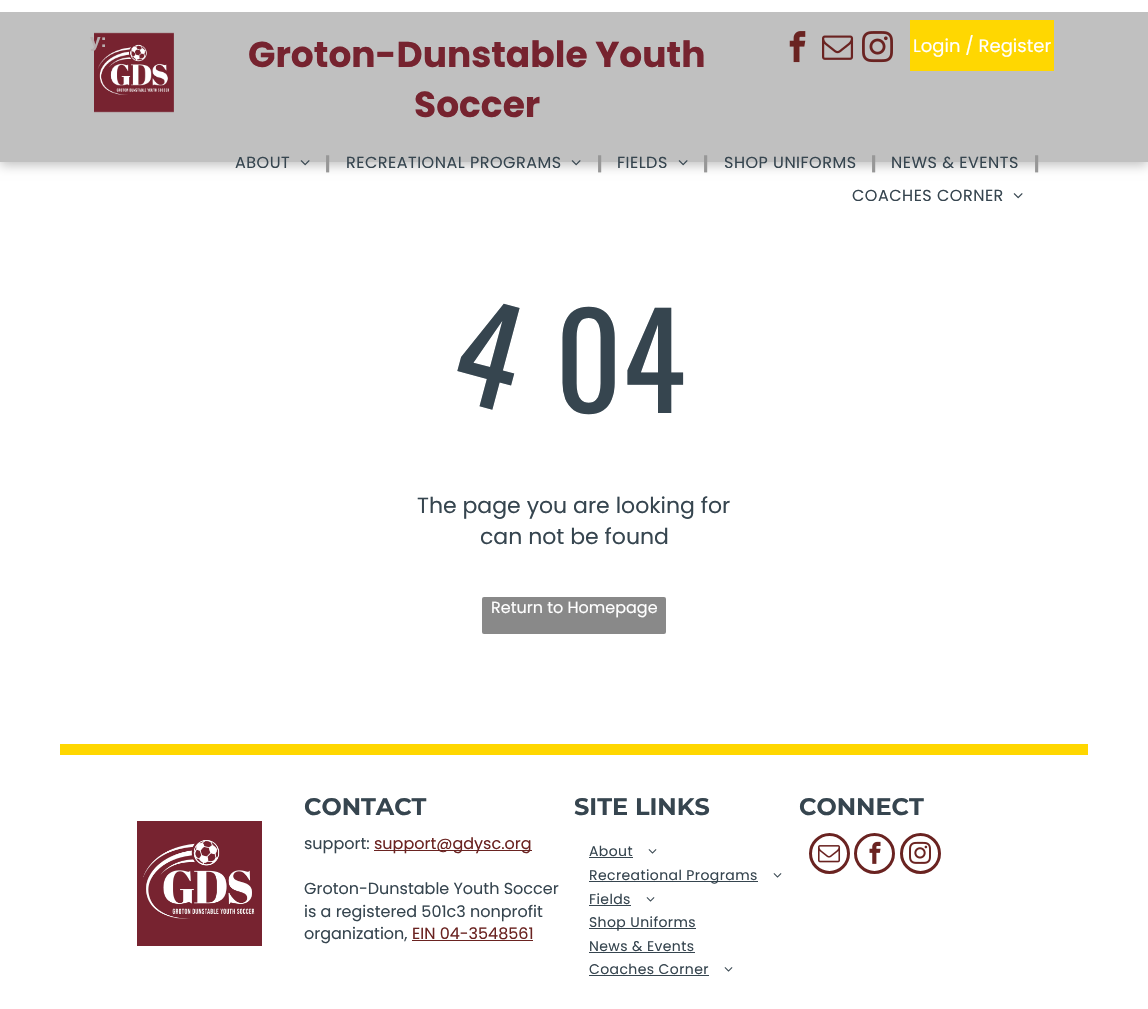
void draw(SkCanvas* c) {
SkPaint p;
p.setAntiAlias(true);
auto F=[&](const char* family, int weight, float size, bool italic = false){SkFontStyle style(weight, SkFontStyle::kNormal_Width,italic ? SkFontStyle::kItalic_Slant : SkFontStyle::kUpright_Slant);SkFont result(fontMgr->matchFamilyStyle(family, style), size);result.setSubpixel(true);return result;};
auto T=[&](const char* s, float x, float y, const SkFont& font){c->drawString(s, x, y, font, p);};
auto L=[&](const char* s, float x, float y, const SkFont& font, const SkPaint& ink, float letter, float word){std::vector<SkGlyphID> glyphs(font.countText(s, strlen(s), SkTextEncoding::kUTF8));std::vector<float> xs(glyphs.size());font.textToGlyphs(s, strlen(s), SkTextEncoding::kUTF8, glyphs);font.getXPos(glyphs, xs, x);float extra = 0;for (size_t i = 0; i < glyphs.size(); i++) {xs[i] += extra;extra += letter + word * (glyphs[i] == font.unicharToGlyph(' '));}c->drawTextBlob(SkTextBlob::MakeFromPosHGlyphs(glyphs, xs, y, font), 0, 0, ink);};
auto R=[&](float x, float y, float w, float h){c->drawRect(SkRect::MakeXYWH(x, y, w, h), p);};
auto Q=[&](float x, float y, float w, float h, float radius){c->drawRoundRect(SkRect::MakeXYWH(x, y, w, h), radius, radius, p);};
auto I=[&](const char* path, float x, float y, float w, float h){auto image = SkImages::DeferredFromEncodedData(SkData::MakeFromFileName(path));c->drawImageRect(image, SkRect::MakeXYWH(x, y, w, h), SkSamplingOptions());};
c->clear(0xffffffff);
p.setColor(0x40000000);
p.setMaskFilter(SkMaskFilter::MakeBlur(kNormal_SkBlurStyle, 5.5));
c->drawRect(SkRect::MakeXYWH(0,3,1148,162),p);
p.setMaskFilter(nullptr);
p.setColor(0xffc0c0c0);
R(0,12,1148,150);
I("1.png",94,32,80,81);
auto f1 = F("Liberation Sans",700,19);
p.setColor(0xffb8afb0);
T("y:",90,47,f1);
p.setColor(0xffffffff);
R(0,0,1148,12);
auto f2 = F("Poppins",700,36);
p.setColor(0xff76232f);
T("Groton-Dunstable Youth",248,67,f2);
T("Soccer",414,117,f2);
I("2.png",789,31,17,32);
I("3.png",822,35,32,25);
I("4.png",862,31,31,32);
p.setColor(0xffffd701);
R(910,20,144,51);
auto f3 = F("Poppins",400,18);
p.setColor(0xffffffff);
T("Login / Register",913,52,f3);
auto f4 = F("Poppins",400,16);
p.setColor(0xff36454f);
L("ABOUT",235,168,f4,p,.5,0);
I("5.png",300,160,10,6);
auto f5 = F("Poppins",700,18);
p.setColor(0xff979797);
T("|",325,170,f5);
p.setColor(0xff36454f);
L("RECREATIONAL PROGRAMS",346,168,f4,p,.5,0);
I("5.png",571,160,10,6);
p.setColor(0xff979797);
T("|",597,170,f5);
p.setColor(0xff36454f);
L("FIELDS",617,168,f4,p,.5,0);
I("5.png",678,160,10,6);
p.setColor(0xff979797);
T("|",703,170,f5);
p.setColor(0xff36454f);
L("SHOP UNIFORMS",724,168,f4,p,.5,0);
p.setColor(0xff979797);
T("|",871,170,f5);
p.setColor(0xff36454f);
L("NEWS & EVENTS",891,168,f4,p,.5,0);
p.setColor(0xff979797);
T("|",1034,170,f5);
p.setColor(0xff36454f);
L("COACHES CORNER",852,201,f4,p,.5,0);
I("6.png",1013,193,10,6);
auto f6 = F("Oswald",400,130);
c->save();
c->rotate(15,445,397);
T("4",445,397,f6);
c->restore();
T("04",555,413,f6);
auto f7 = F("Poppins",400,22);
T("The page you are looking for",417,513,f7);
T("can not be found",480,544,f7);
p.setColor(0xff898989);
Q(482,597,184,37,2);
p.setColor(0xffffffff);
T("Return to Homepage",491,613,f4);
p.setColor(0xffffd700);
R(60,744,1028,11);
auto f8 = F("Montserrat",700,24);
p.setColor(0xff36454f);
T("CONTACT",304,815,f8);
T("support:",304,849,f4);
p.setColor(0xff6a2321);
R(374,850,158,1);
T("support@gdysc.org",374,849,f4);
p.setColor(0xff36454f);
T("Groton-Dunstable Youth Soccer",304,894,f4);
T("is a registered 501c3 nonprofit",304,917,f4);
T("organization,",304,939,f4);
p.setColor(0xff6a2321);
T("EIN 04-3548561",412,939,f4);
R(412,940,121,1);
p.setColor(0xff36454f);
T("SITE LINKS",574,815,f8);
auto f9 = F("Poppins",400,14);
L("About",589,856,f9,p,.4,0);
R(589,857,44,1);
I("7.png",648,849,9,5);
R(589,881,169,1);
L("Recreational Programs",589,880,f9,p,.4,0);
I("7.png",773,873,9,5);
L("Fields",589,904,f9,p,.4,0);
R(589,905,42,1);
I("7.png",646,897,9,5);
R(589,928,107,1);
L("Shop Uniforms",589,927,f9,p,.4,0);
L("News & Events",589,951,f9,p,.4,0);
R(589,952,106,1);
L("Coaches Corner",589,974,f9,p,.4,0);
R(589,975,120,1);
I("7.png",724,967,9,5);
T("CONNECT",799,815,f8);
p.setStroke(true);
p.setStrokeWidth(3);
p.setColor(0xff6a2321);
c->drawCircle(829.5,853.5,19,p);
I("8.png",818,845,23,18);
c->drawCircle(874.5,853.5,19,p);
I("9.png",869,841,12,23);
c->drawCircle(920.5,853.5,19,p);
I("10.png",909,841,22,23);
I("11.png",137,821,125,125);
}
